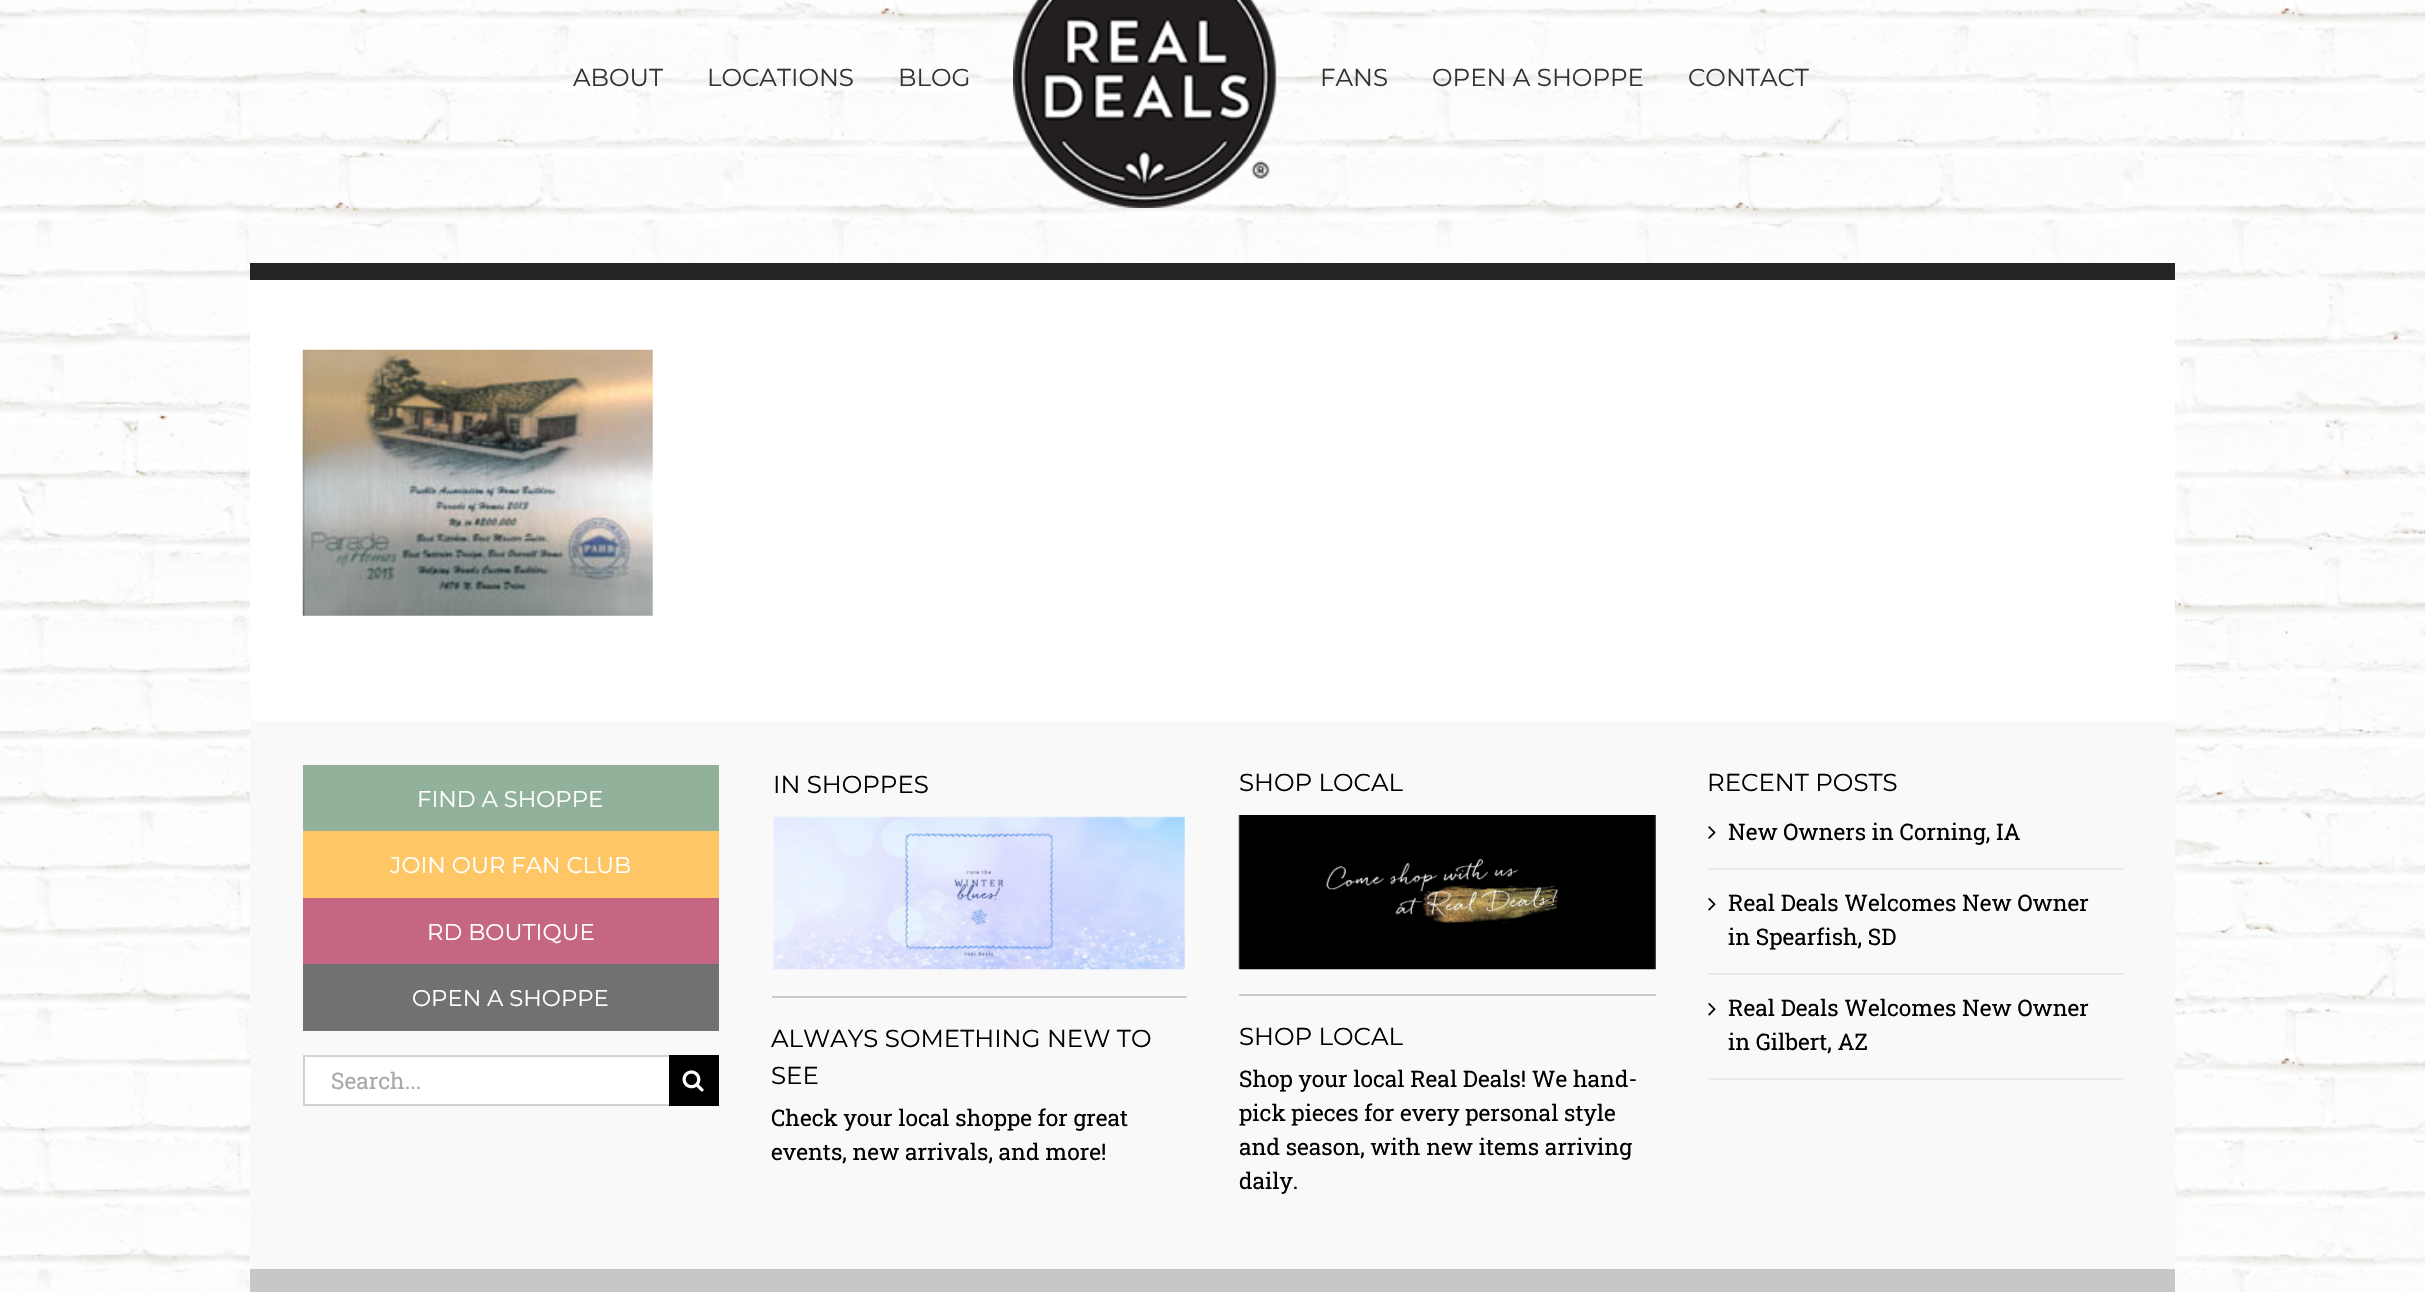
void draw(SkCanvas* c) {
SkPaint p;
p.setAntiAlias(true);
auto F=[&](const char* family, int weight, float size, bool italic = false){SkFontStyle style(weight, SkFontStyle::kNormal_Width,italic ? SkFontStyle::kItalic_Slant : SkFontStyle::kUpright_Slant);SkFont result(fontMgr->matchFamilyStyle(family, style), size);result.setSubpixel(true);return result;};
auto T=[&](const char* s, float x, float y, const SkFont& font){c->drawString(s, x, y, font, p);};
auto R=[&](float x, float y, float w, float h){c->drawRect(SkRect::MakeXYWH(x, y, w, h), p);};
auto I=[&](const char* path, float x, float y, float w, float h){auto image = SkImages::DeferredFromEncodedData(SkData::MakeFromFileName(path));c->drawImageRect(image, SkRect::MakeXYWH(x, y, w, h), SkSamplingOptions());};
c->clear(0xffffffff);
I("1.png",0,0,2425,1292);
auto f1 = F("Montserrat",400,24.5);
p.setColor(0xff333333);
T("ABOUT",573,86,f1);
T("LOCATIONS",707,86,f1);
T("BLOG",898,86,f1);
I("2.png",1013,0,264,208);
T("FANS",1320,86,f1);
T("OPEN A SHOPPE",1432,86,f1);
T("CONTACT",1688,86,f1);
p.setColor(0xffffffff);
R(250,280,1925,441);
p.setColor(0xff242424);
R(250,263,1925,17);
I("3.png",302,349,351,267);
p.setColor(0xfff9f9f9);
R(250,721,1925,548);
p.setColor(0xff91b19a);
R(303,765,416,66);
auto f2 = F("Montserrat",400,22.75);
p.setColor(0xffffffff);
T("FIND A SHOPPE",417,807,f2);
p.setColor(0xfffec665);
R(303,831,416,67);
p.setColor(0xffffffff);
T("JOIN OUR FAN CLUB",390,873,f2);
p.setColor(0xffc56683);
R(303,898,416,66);
p.setColor(0xffffffff);
T("RD BOUTIQUE",427,940,f2);
p.setColor(0xff707272);
R(303,964,416,67);
p.setColor(0xffffffff);
T("OPEN A SHOPPE",412,1006,f2);
R(305,1057,364,47);
p.setColor(0xffd2d2d2);
R(303,1055,366,2);
R(303,1104,366,2);
R(303,1055,2,51);
auto f3 = F("Roboto Slab",400,22.75);
p.setColor(0xffaaa9a9);
T("Search...",331,1089,f3);
p.setColor(0xff000000);
R(669,1055,50,51);
I("4.png",682,1070,22,22);
T("IN SHOPPES",773,793,f1);
I("5.png",773,816,412,154);
p.setColor(0xffcccccc);
R(772,996,415,2);
p.setColor(0xff000000);
T("ALWAYS SOMETHING NEW TO",771,1047,f1);
T("SEE",771,1084,f1);
T("Check your local shoppe for great",771,1126,f3);
T("events, new arrivals, and more!",771,1160,f3);
T("SHOP LOCAL",1239,791,f1);
I("6.png",1238,815,418,155);
p.setColor(0xffcccccc);
R(1239,994,417,2);
p.setColor(0xff000000);
T("SHOP LOCAL",1239,1045,f1);
T("Shop your local Real Deals! We hand-",1239,1087,f3);
T("pick pieces for every personal style",1239,1121,f3);
T("and season, with new items arriving",1239,1155,f3);
T("daily.",1239,1189,f3);
T("RECENT POSTS",1707,791,f1);
p.setColor(0xffeaeaea);
R(1708,868,415,2);
I("7.png",1708,826,8,13);
p.setColor(0xff000000);
T("New Owners in Corning, IA",1728,840,f3);
p.setColor(0xffeaeaea);
R(1708,973,415,2);
I("8.png",1708,898,8,13);
p.setColor(0xff000000);
T("Real Deals Welcomes New Owner",1728,911,f3);
T("in Spearfish, SD",1728,945,f3);
p.setColor(0xffeaeaea);
R(1708,1078,415,2);
I("8.png",1708,1003,8,13);
p.setColor(0xff000000);
T("Real Deals Welcomes New Owner",1728,1016,f3);
T("in Gilbert, AZ",1728,1050,f3);
p.setColor(0xffc8c7c7);
R(250,1269,1925,23);
}
